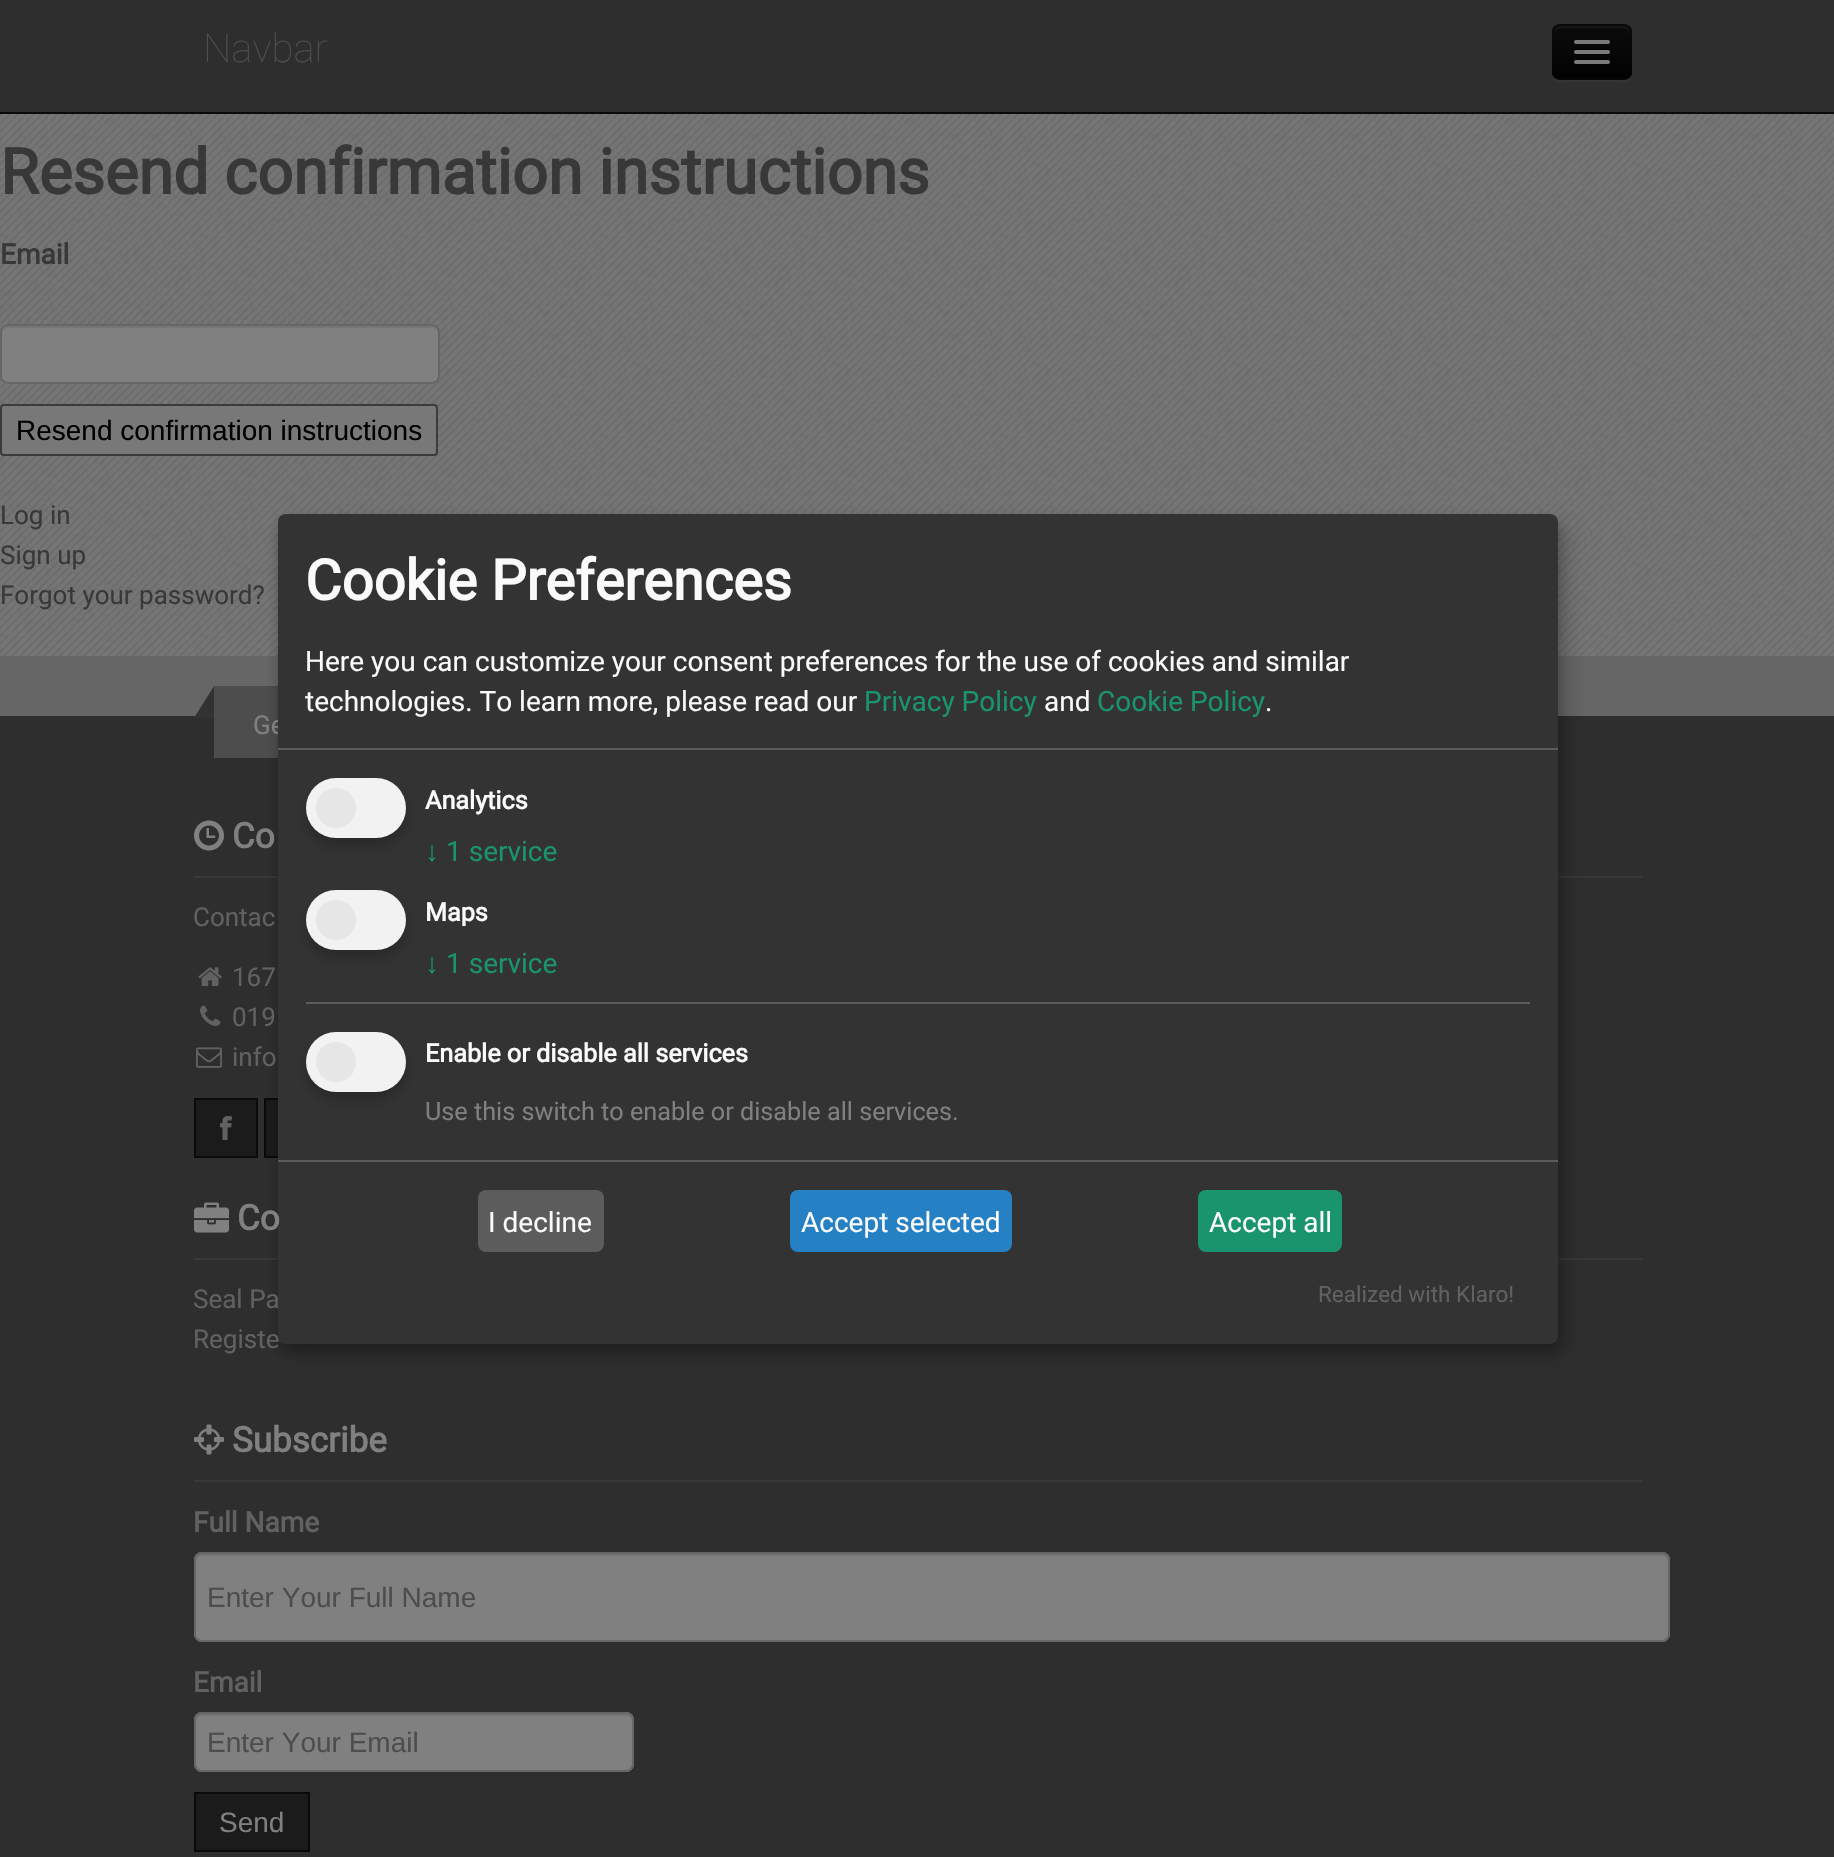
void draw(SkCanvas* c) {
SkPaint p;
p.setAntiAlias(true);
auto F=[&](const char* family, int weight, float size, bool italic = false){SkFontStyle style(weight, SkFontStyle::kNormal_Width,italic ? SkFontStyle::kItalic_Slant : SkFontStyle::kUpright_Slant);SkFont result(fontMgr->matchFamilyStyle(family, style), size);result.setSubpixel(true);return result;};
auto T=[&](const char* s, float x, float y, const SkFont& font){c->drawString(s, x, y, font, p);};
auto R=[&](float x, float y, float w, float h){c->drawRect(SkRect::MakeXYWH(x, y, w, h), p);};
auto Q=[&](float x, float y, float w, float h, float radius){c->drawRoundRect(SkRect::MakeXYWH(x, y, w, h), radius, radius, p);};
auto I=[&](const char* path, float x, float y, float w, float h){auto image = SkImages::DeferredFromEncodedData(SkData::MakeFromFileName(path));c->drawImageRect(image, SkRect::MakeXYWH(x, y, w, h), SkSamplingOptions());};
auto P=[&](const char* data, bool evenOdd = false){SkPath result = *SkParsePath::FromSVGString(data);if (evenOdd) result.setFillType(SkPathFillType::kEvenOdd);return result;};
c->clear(0xffffffff);
I("1.png",0,114,1834,542);
p.setColor(0xff2e2e2e);
R(0,0,1834,112);
p.setColor(0xff0a0a0a);
R(0,112,1834,2);
auto f1 = F("Roboto",100,40);
p.setColor(0xff4d4d4d);
T("Navbar",203,62,f1);
p.setColor(0xff343434);
c->drawPath(P("M1552 72c0 12 9 10 19 10h42c10 0 19 2 19-10c0 4-4 8-8 8h-64c-4 0-8-4-8-8z"),p);
p.setColor(0xff070707);
Q(1552,24,80,56,8);
c->save();
c->clipPath(P("M1560 24h64c4.5 0 8 3.5 8 8v40c0 4.5-3.5 8-8 8h-64c-4.5 0-8-3.5-8-8v-40c0-4.5 3.5-8 8-8z"),true);
{
const SkColor colors[] = {0xff0b0b0b,0xff020202};
const float stops[] = {0,1};
const SkPoint ends[] = {{1592,26}, {1592,78}};
p.setShader(SkGradientShader::MakeLinear(ends, colors, stops, 2, SkTileMode::kClamp));
p.setAlpha(255);
}
R(1552,26,80,52);
c->restore();
p.setShader(nullptr);
p.setColor(0xff161616);
c->drawPath(P("M1560 28h64c3 0 6 3 6 6c0-10-8-8-17-8h-42c-9 0-17-2-17 8c0-3 3-6 6-6z"),p);
p.setStroke(true);
p.setStrokeWidth(2);
p.setColor(0x40000000);
c->drawPath(P("M1629 77c-1.5 1.5-3 2-5 2h-64c-2 0-3.5-.5-5-2"),p);
p.setStroke(false);
p.setColor(0xff7b7b7b);
Q(1574,40,36,4,2);
Q(1574,50,36,4,2);
Q(1574,60,36,4,2);
auto f2 = F("Roboto",700,63);
p.setColor(0xff383838);
T("Resend confirmation instructions",0,194,f2);
auto f3 = F("Roboto",700,28);
T("Email",0,264,f3);
p.setColor(0xff808080);
Q(0,324,440,60,8);
p.setColor(0xff767676);
c->drawPath(P("M8 328h424c3 0 6 3 6 6v-2c0-3-3-6-6-6h-424c-3 0-6 3-6 6v2c0-3 3-6 6-6z"),p);
p.setStroke(true);
p.setColor(0xff666666);
c->drawRoundRect(SkRect::MakeXYWH(1,325,438,58),7,7,p);
p.setStroke(false);
p.setColor(0xff787878);
c->drawRoundRect(SkRect::MakeXYWH(1,405,436,50),3,3,p);
p.setStroke(true);
p.setColor(0xff3b3b3b);
c->drawRoundRect(SkRect::MakeXYWH(1,405,436,50),3,3,p);
auto f4 = F("Liberation Sans",400,28);
p.setStroke(false);
p.setColor(0xff000000);
T("Resend confirmation instructions",16,440,f4);
auto f5 = F("Roboto",400,26);
p.setColor(0xff383838);
T("Log in",0,524,f5);
T("Sign up",0,564,f5);
T("Forgot your password?",0,604,f5);
p.setColor(0xff2e2e2e);
R(0,716,1834,1141);
p.setColor(0xff666666);
R(0,656,1834,60);
p.setColor(0xff4d4d4d);
R(214,686,64,72);
p.setColor(0xff383838);
R(194,876,1448,2);
p.setColor(0xff1b1b1b);
c->drawRect(SkRect::MakeXYWH(195,1099,62,58),p);
p.setStroke(true);
p.setColor(0xff0a0a0a);
c->drawRect(SkRect::MakeXYWH(195,1099,62,58),p);
p.setStroke(false);
p.setColor(0xff1b1b1b);
R(266,1100,12,56);
p.setStroke(true);
p.setColor(0xff0a0a0a);
c->drawRect(SkRect::MakeXYWH(265,1099,80,58),p);
p.setStroke(false);
p.setColor(0xff383838);
R(194,1258,1448,2);
p.setColor(0x30000000);
p.setMaskFilter(SkMaskFilter::MakeBlur(kNormal_SkBlurStyle, 10));
c->drawRoundRect(SkRect::MakeXYWH(288,524,1280,830),8,8,p);
p.setMaskFilter(nullptr);
p.setColor(0x33000000);
p.setMaskFilter(SkMaskFilter::MakeBlur(kNormal_SkBlurStyle, 6));
c->drawRoundRect(SkRect::MakeXYWH(278,522,1280,830),8,8,p);
p.setMaskFilter(nullptr);
p.setColor(0xff808080);
T("Ge",253,734,f5);
p.setColor(0xff616161);
T("Seal Pa",193,1308,f5);
T("Registe",193,1348,f5);
p.setColor(0xff333333);
Q(278,514,1280,830,8);
p.setColor(0xff5c5c5c);
R(278,748,1280,2);
auto f6 = F("Roboto",700,56);
p.setColor(0xfffafafa);
T("Cookie Preferences",305,600,f6);
auto f7 = F("Roboto",400,28);
T("Here you can customize your consent preferences for the use of cookies and similar",305,671,f7);
T("technologies. To learn more, please read our",305,711,f7);
p.setColor(0xff1a936f);
T("Privacy Policy",864,711,f7);
p.setColor(0xfffafafa);
T("and",1044,711,f7);
p.setColor(0xff1a936f);
T("Cookie Policy",1097,711,f7);
p.setColor(0xfffafafa);
T(".",1265,711,f7);
p.setColor(0x33000000);
p.setMaskFilter(SkMaskFilter::MakeBlur(kNormal_SkBlurStyle, 6));
c->drawRoundRect(SkRect::MakeXYWH(306,786,100,60),30,30,p);
p.setMaskFilter(nullptr);
p.setColor(0xfff2f2f2);
Q(306,778,100,60,30);
p.setColor(0xffe6e6e6);
c->drawCircle(336,808,20,p);
auto f8 = F("Roboto",700,25.2);
p.setColor(0xfffafafa);
T("Analytics",425,809,f8);
p.setColor(0xff1a936f);
T("↓",425,861,f4);
T("1 service",446,861,f7);
p.setColor(0x33000000);
p.setMaskFilter(SkMaskFilter::MakeBlur(kNormal_SkBlurStyle, 6));
c->drawRoundRect(SkRect::MakeXYWH(306,898,100,60),30,30,p);
p.setMaskFilter(nullptr);
p.setColor(0xfff2f2f2);
Q(306,890,100,60,30);
p.setColor(0xffe6e6e6);
c->drawCircle(336,920,20,p);
p.setColor(0xfffafafa);
T("Maps",425,921,f8);
p.setColor(0xff1a936f);
T("↓",425,973,f4);
T("1 service",446,973,f7);
p.setColor(0xff5c5c5c);
R(306,1002,1224,2);
p.setColor(0x33000000);
p.setMaskFilter(SkMaskFilter::MakeBlur(kNormal_SkBlurStyle, 6));
c->drawRoundRect(SkRect::MakeXYWH(306,1040,100,60),30,30,p);
p.setMaskFilter(nullptr);
p.setColor(0xfff2f2f2);
Q(306,1032,100,60,30);
p.setColor(0xffe6e6e6);
c->drawCircle(336,1062,20,p);
p.setColor(0xfffafafa);
T("Enable or disable all services",425,1062,f8);
auto f9 = F("Roboto",400,25.2);
p.setColor(0xff808080);
T("Use this switch to enable or disable all services.",425,1120,f9);
p.setColor(0xff5c5c5c);
R(278,1160,1280,2);
Q(478,1190,126,62,8);
p.setColor(0xfffafafa);
T("I decline",488,1232,f7);
p.setColor(0xff2581c4);
Q(790,1190,222,62,8);
p.setColor(0xfffafafa);
T("Accept selected",801,1232,f7);
p.setColor(0xff1a936f);
Q(1198,1190,144,62,8);
p.setColor(0xfffafafa);
T("Accept all",1209,1232,f7);
auto f10 = F("Roboto",400,22.5);
p.setColor(0xff616161);
T("Realized with Klaro!",1318,1302,f10);
p.setColor(0xff323232);
c->drawPath(P("M214 686v32h-20z"),p);
I("2.png",194,820,30,31);
auto f11 = F("Roboto",700,35);
p.setColor(0xff808080);
T("Co",232,848,f11);
p.setColor(0xff616161);
T("Contac",193,926,f5);
I("3.png",198,967,24,19);
T("167",232,986,f5);
I("4.png",200,1005,21,21);
T("019",232,1026,f5);
I("5.png",196,1047,26,21);
T("info",232,1066,f5);
I("6.png",220,1116,12,24);
I("7.png",194,1202,35,31);
p.setColor(0xff808080);
T("Co",237,1230,f11);
p.setColor(0xff383838);
R(194,1480,1448,2);
I("8.png",194,1424,30,31);
p.setColor(0xff808080);
T("Subscribe",232,1452,f11);
p.setColor(0xff616161);
T("Full Name",193,1532,f3);
p.setColor(0xff808080);
Q(194,1552,1476,90,8);
p.setColor(0xff767676);
c->drawPath(P("M202 1556h1460c3 0 6 3 6 6c0-4-1-8-6-8h-1460c-5 0-6 4-6 8c0-3 3-6 6-6z"),p);
p.setStroke(true);
p.setColor(0xff666666);
c->drawRoundRect(SkRect::MakeXYWH(195,1553,1474,88),7,7,p);
p.setStroke(false);
p.setColor(0xff4d4d4d);
T("Enter Your Full Name",207,1607,f4);
p.setColor(0xff616161);
T("Email",193,1692,f3);
p.setColor(0xff808080);
Q(194,1712,440,60,8);
p.setColor(0xff767676);
c->drawPath(P("M202 1716h424c3 0 6 3 6 6v-2c0-3-3-6-6-6h-424c-3 0-6 3-6 6v2c0-3 3-6 6-6z"),p);
p.setStroke(true);
p.setColor(0xff666666);
c->drawRoundRect(SkRect::MakeXYWH(195,1713,438,58),7,7,p);
p.setStroke(false);
p.setColor(0xff4d4d4d);
T("Enter Your Email",207,1752,f4);
p.setColor(0xff1b1b1b);
c->drawRect(SkRect::MakeXYWH(195,1793,114,58),p);
p.setStroke(true);
p.setColor(0xff0a0a0a);
c->drawRect(SkRect::MakeXYWH(195,1793,114,58),p);
p.setStroke(false);
p.setColor(0xff808080);
T("Send",219,1832,f4);
}
